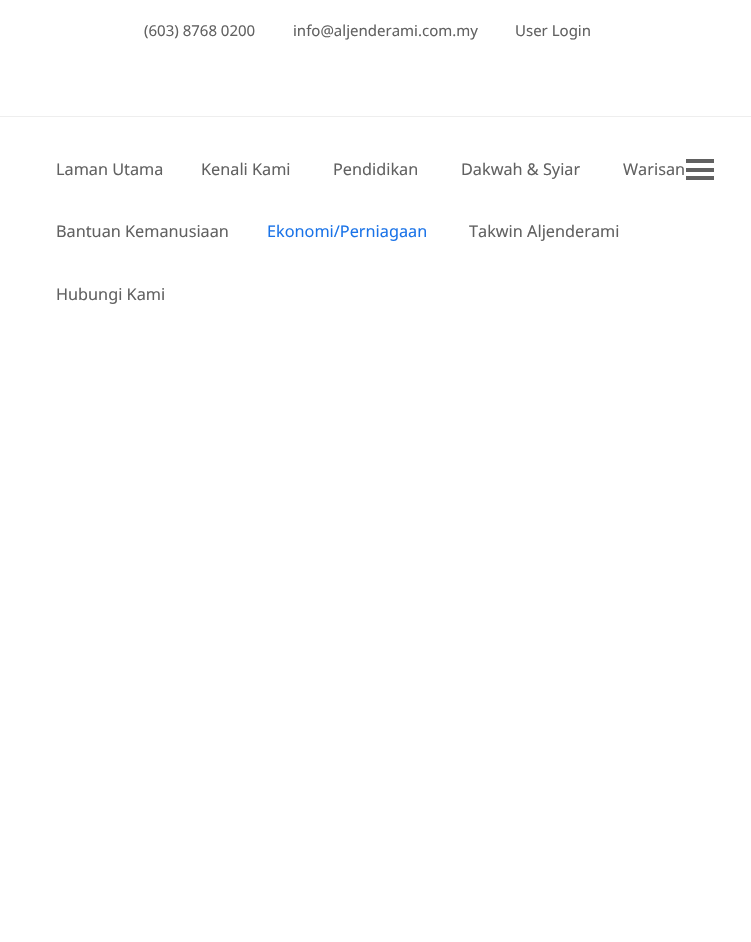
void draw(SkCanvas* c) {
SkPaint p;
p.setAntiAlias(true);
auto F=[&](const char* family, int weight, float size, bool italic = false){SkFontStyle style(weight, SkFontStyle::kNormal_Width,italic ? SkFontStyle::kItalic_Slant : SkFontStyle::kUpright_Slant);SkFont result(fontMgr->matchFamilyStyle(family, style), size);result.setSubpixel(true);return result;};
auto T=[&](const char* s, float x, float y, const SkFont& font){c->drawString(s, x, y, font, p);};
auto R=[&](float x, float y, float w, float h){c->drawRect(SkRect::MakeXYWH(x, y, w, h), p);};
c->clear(0xffffffff);
p.setColor(0xffeeeeee);
R(0,116,751,1);
auto f1 = F("Noto Sans",400,15);
p.setColor(0xff616161);
T("(603) 8768 0200",144,36,f1);
T("info@aljenderami.com.my",293,36,f1);
T("User Login",515,36,f1);
auto f2 = F("Noto Sans",400,16.25);
T("Laman Utama",56,175,f2);
T("Kenali Kami",201,175,f2);
T("Pendidikan",333,175,f2);
T("Dakwah & Syiar",461,175,f2);
T("Warisan",623,175,f2);
T("Bantuan Kemanusiaan",56,237,f2);
p.setColor(0xff1a73e8);
T("Ekonomi/Perniagaan",267,237,f2);
p.setColor(0xff616161);
T("Takwin Aljenderami",469,237,f2);
T("Hubungi Kami",56,300,f2);
R(686,168,28,4);
R(686,159,28,4);
R(686,176,28,4);
}
